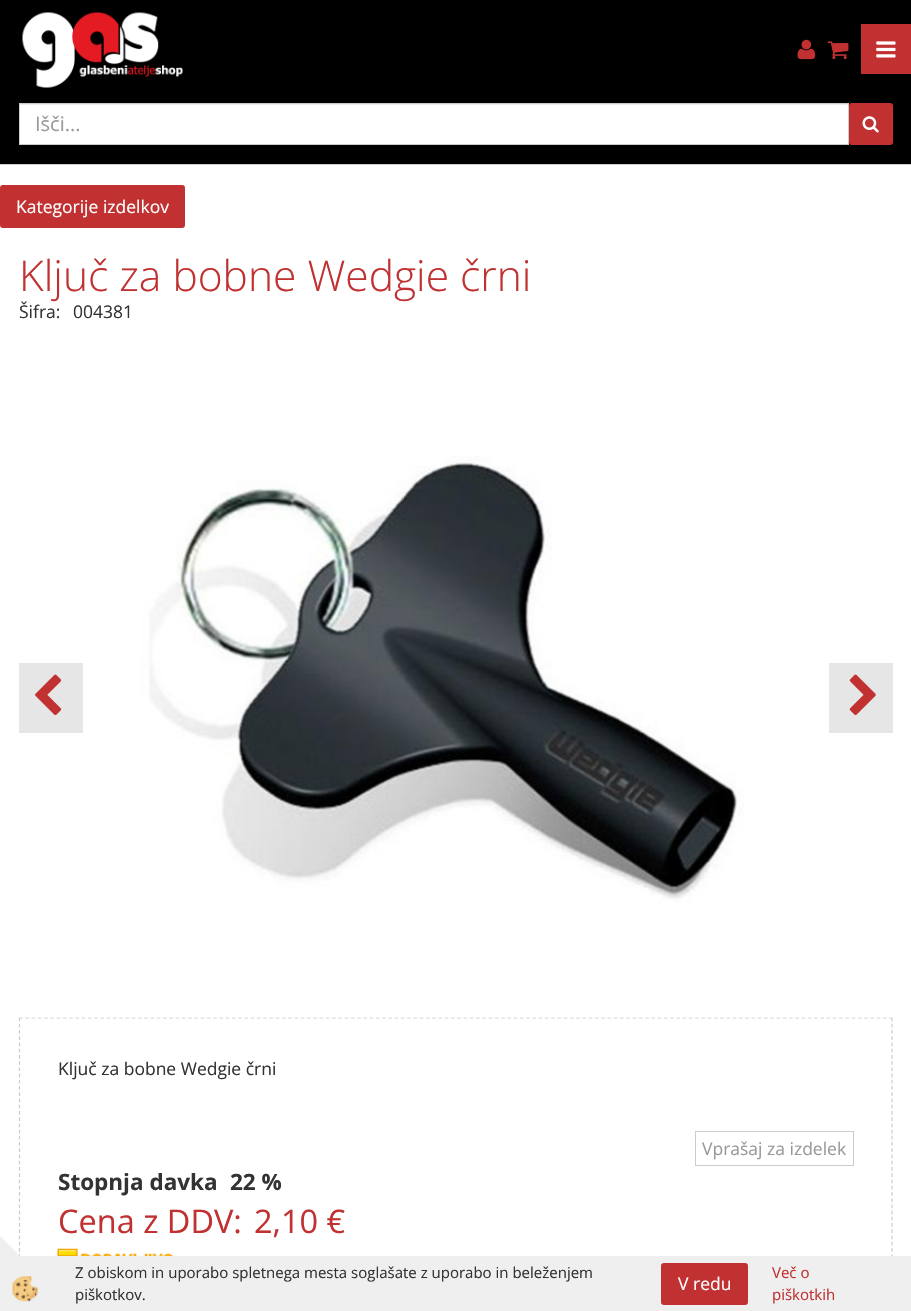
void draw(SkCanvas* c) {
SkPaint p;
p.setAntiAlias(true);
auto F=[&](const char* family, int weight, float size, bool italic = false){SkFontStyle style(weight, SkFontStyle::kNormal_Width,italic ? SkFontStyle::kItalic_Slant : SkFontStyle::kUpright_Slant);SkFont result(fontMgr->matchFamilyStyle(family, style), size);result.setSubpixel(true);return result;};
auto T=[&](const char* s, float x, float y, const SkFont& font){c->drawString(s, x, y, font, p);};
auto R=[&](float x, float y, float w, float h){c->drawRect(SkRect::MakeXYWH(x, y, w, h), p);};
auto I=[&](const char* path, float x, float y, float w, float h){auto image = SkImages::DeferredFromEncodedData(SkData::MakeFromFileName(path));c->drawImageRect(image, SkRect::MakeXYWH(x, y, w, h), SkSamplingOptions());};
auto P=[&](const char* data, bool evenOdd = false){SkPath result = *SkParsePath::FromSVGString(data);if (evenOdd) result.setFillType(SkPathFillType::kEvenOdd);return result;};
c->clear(0xffffffff);
p.setColor(0xff000000);
R(0,0,911,164);
p.setColor(0xffcccccc);
R(0,164,911,1);
I("1.png",22,12,161,76);
I("2.png",797,39,19,21);
I("3.png",827,41,22,19);
p.setColor(0xffc13131);
R(861,24,50,50);
I("4.png",876,41,20,17);
p.setColor(0xffffffff);
R(20,105,828,39);
p.setColor(0xffececec);
R(20,104,828,1);
p.setStroke(true);
p.setStrokeWidth(1);
p.setColor(0xffcccccc);
c->drawRect(SkRect::MakeXYWH(19.5,103.5,829,41),p);
auto f1 = F("Open Sans",400,20);
p.setStroke(false);
p.setColor(0xff999999);
T("Išči...",35,131,f1);
p.setColor(0xffc13131);
c->drawRoundRect(SkRect::MakeXYWH(849.5,103.5,43,41),2,2,p);
p.setStroke(true);
c->drawRoundRect(SkRect::MakeXYWH(849.5,103.5,43,41),2,2,p);
I("5.png",862,116,17,17);
p.setStroke(false);
c->drawRoundRect(SkRect::MakeXYWH(.5,185.5,184,42),2,2,p);
p.setStroke(true);
c->drawRoundRect(SkRect::MakeXYWH(.5,185.5,184,42),2,2,p);
auto f2 = F("Open Sans",400,17.5);
p.setStroke(false);
p.setColor(0xffffffff);
T("Kategorije izdelkov",16,213,f2);
auto f3 = F("Open Sans",300,42.5);
p.setColor(0xffc13131);
T("Ključ za bobne Wedgie črni",19,291,f3);
p.setColor(0xff333333);
T("Šifra:",19,318,f2);
T("004381",73,318,f2);
p.setStroke(true);
p.setStrokeWidth(1.2);
p.setColor(0xffcccccc);
p.setPathEffect(SkDashPathEffect::Make({{3.75f,2.51f}}, 0));
c->drawPath(P("M19 1018h873.5"),p);
p.setPathEffect(nullptr);
p.setPathEffect(SkDashPathEffect::Make({{3.75f,2.48f}}, 0));
c->drawPath(P("M892 1017.5v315"),p);
p.setPathEffect(nullptr);
p.setPathEffect(SkDashPathEffect::Make({{3.75f,2.48f}}, 0));
c->drawPath(P("M19.5 1017.5v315"),p);
p.setPathEffect(nullptr);
I("6.png",19,456,874,562);
p.setStroke(false);
p.setColor(0xffe6e6e6);
R(19,663,64,70);
I("7.png",35,674,27,41);
R(829,663,64,70);
I("8.png",849,674,27,41);
p.setColor(0xff333333);
T("Ključ za bobne Wedgie črni",58,1075,f2);
p.setStroke(true);
p.setStrokeWidth(1);
p.setColor(0xffcccccc);
c->drawRect(SkRect::MakeXYWH(695.5,1131.5,158,34),p);
p.setStroke(false);
p.setColor(0xff999999);
T("Vprašaj za izdelek",702,1155,f2);
auto f4 = F("Open Sans",700,22.5);
p.setColor(0xff333333);
T("Stopnja davka",58,1190,f4);
T("22 %",230,1190,f4);
auto f5 = F("Open Sans",400,32.5);
p.setColor(0xffc13131);
T("Cena z DDV:",58,1233,f5);
T("2,10 €",254,1233,f5);
I("9.png",57,1248,117,8);
p.setColor(0xffefefef);
R(20,1256,891,55);
c->drawPath(P("M75 1311h-75v-75z"),p);
I("10.png",12,1276,26,26);
auto f6 = F("Open Sans",400,15);
p.setColor(0xff333333);
T("Z obiskom in uporabo spletnega mesta soglašate z uporabo in beleženjem",75,1278,f6);
p.setColor(0xffc13131);
c->drawRoundRect(SkRect::MakeXYWH(661.5,1263.5,86,41),2,2,p);
p.setStroke(true);
c->drawRoundRect(SkRect::MakeXYWH(661.5,1263.5,86,41),2,2,p);
p.setStroke(false);
p.setColor(0xffffffff);
T("V redu",678,1290,f2);
p.setColor(0xffc13131);
T("Več o",772,1278,f6);
T("piškotkih",772,1300,f6);
p.setColor(0xff333333);
T("piškotkov.",75,1300,f6);
}
